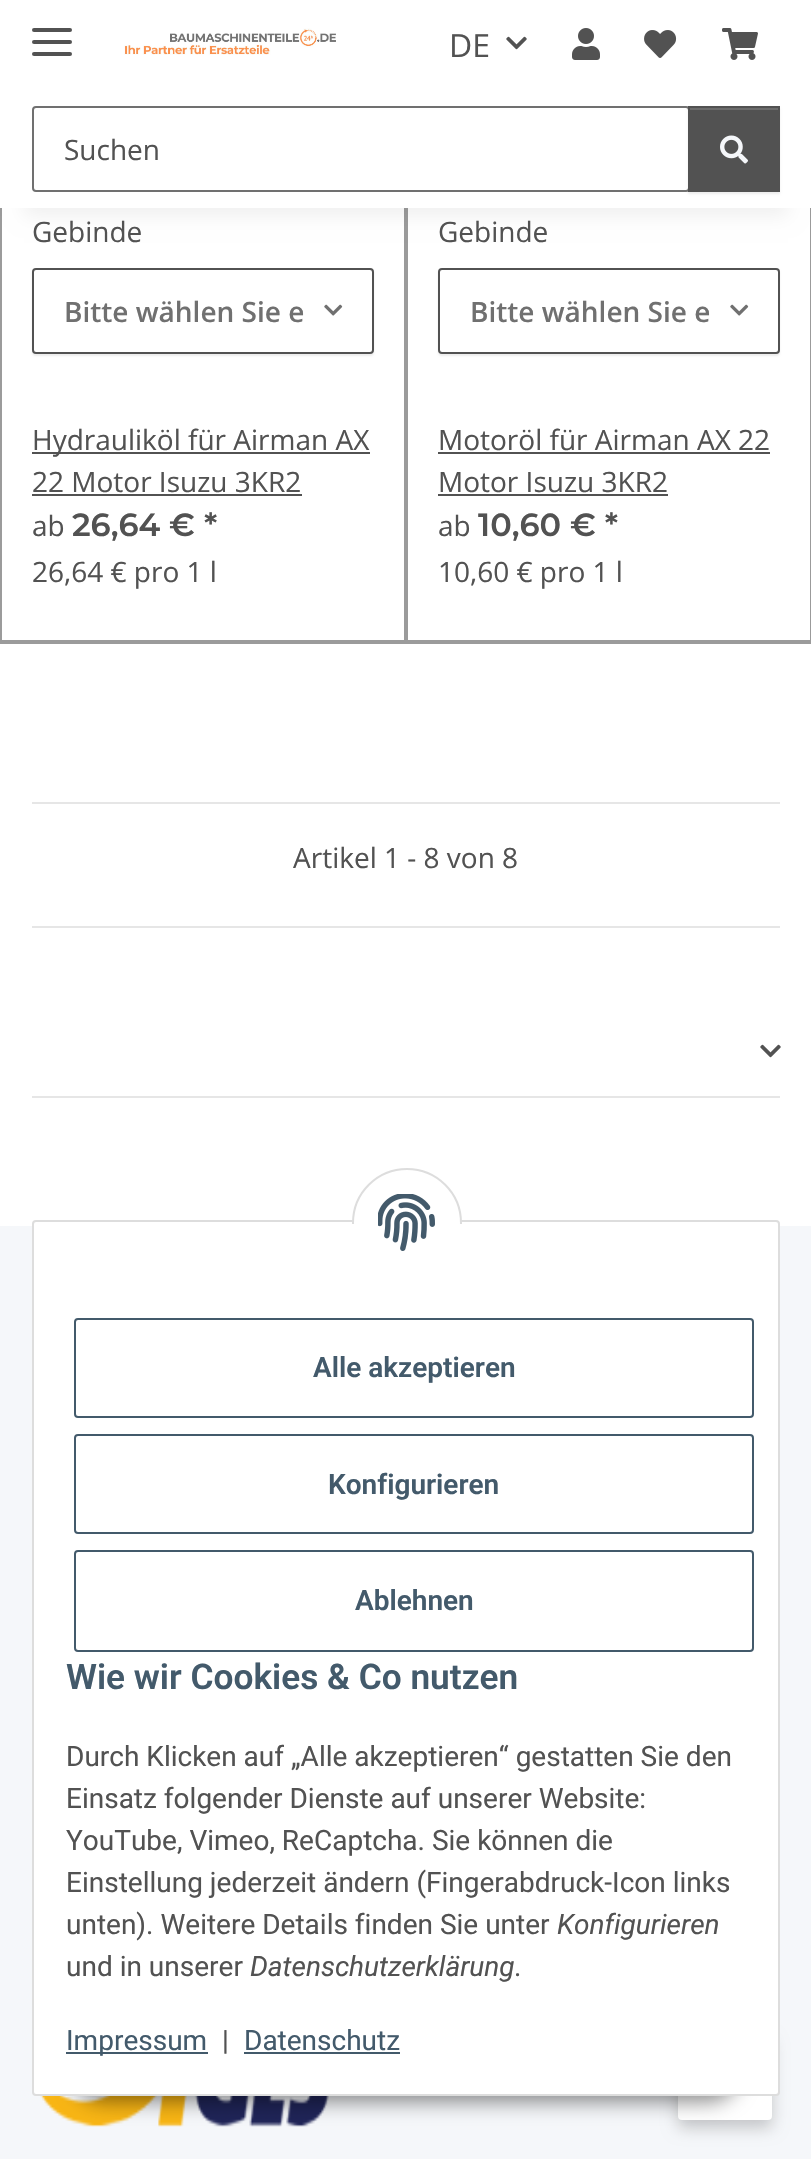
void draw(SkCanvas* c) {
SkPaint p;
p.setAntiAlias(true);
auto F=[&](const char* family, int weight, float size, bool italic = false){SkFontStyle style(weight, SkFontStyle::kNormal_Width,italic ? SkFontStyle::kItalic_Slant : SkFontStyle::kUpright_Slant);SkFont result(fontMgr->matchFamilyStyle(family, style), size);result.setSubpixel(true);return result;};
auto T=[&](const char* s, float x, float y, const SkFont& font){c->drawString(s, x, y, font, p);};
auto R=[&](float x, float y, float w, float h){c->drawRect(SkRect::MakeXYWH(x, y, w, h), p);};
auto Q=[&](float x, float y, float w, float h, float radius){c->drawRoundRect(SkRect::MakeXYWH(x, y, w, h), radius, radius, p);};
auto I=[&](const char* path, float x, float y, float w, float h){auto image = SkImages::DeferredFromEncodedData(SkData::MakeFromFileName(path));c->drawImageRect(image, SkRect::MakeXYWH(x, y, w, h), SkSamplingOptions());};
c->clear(0xfff5f7fa);
p.setColor(0xffffffff);
R(0,208,811,1018);
p.setStroke(true);
p.setStrokeWidth(4);
p.setColor(0xff9b9b9b);
c->drawRect(SkRect::MakeXYWH(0,-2,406,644),p);
c->drawRect(SkRect::MakeXYWH(406,-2,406,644),p);
p.setStroke(false);
p.setColor(0x0f000000);
p.setMaskFilter(SkMaskFilter::MakeBlur(kNormal_SkBlurStyle, 9));
c->drawRect(SkRect::MakeXYWH(24,56,764,160),p);
p.setMaskFilter(nullptr);
p.setColor(0xffffffff);
R(0,0,811,208);
p.setColor(0xff525252);
Q(32,40,40,4,2);
Q(32,28,40,4,2);
Q(32,52,40,4,2);
I("1.png",124,28,212,27);
auto f1 = F("Open Sans",400,32);
T("DE",449,57,f1);
I("2.png",506,36,21,14);
I("3.png",572,28,28,32);
I("4.png",644,30,33,28);
I("5.png",722,28,36,32);
p.setStroke(true);
p.setStrokeWidth(2);
p.setColor(0xff707070);
c->drawRoundRect(SkRect::MakeXYWH(33,107,656,84),3,3,p);
auto f2 = F("Open Sans",400,28);
p.setStroke(false);
p.setColor(0xff525252);
T("Suchen",64,160,f2);
p.setColor(0x12000000);
p.setMaskFilter(SkMaskFilter::MakeBlur(kNormal_SkBlurStyle, 1));
c->drawRect(SkRect::MakeXYWH(688,108,92,86),p);
p.setMaskFilter(nullptr);
p.setColor(0xff525252);
R(688,106,92,86);
p.setColor(0xff6c6c6c);
R(690,108,88,2);
I("6.png",720,135,28,29);
p.setColor(0xff525252);
T("Gebinde",32,242,f2);
p.setColor(0x12000000);
p.setMaskFilter(SkMaskFilter::MakeBlur(kNormal_SkBlurStyle, 1));
c->drawRoundRect(SkRect::MakeXYWH(32,270,342,86),4,4,p);
p.setMaskFilter(nullptr);
p.setColor(0xffffffff);
c->drawRoundRect(SkRect::MakeXYWH(33,269,340,84),3,3,p);
p.setStroke(true);
p.setColor(0xff525252);
c->drawRoundRect(SkRect::MakeXYWH(33,269,340,84),3,3,p);
auto f3 = F("Open Sans",600,28);
p.setStroke(false);
p.setColor(0xff707070);
T("Bitte wählen Sie e",64,322,f3);
I("7.png",324,304,19,12);
p.setColor(0xff525252);
R(32,452,338,2);
T("Hydrauliköl für Airman AX",32,450,f2);
T("22 Motor Isuzu 3KR2",32,492,f2);
R(32,494,270,2);
T("ab",32,536,f2);
auto f4 = F("Montserrat",600,32);
T("26,64 € *",72,536,f4);
T("26,64 € pro 1 l",32,582,f2);
T("Gebinde",438,242,f2);
p.setColor(0x12000000);
p.setMaskFilter(SkMaskFilter::MakeBlur(kNormal_SkBlurStyle, 1));
c->drawRoundRect(SkRect::MakeXYWH(438,270,342,86),4,4,p);
p.setMaskFilter(nullptr);
p.setColor(0xffffffff);
c->drawRoundRect(SkRect::MakeXYWH(439,269,340,84),3,3,p);
p.setStroke(true);
p.setColor(0xff525252);
c->drawRoundRect(SkRect::MakeXYWH(439,269,340,84),3,3,p);
p.setStroke(false);
p.setColor(0xff707070);
T("Bitte wählen Sie e",470,322,f3);
I("7.png",730,304,19,12);
p.setColor(0xff525252);
T("Motoröl für Airman AX 22",438,450,f2);
R(438,452,332,2);
T("Motor Isuzu 3KR2",438,492,f2);
R(438,494,230,2);
T("ab",438,536,f2);
T("10,60 € *",478,536,f4);
T("10,60 € pro 1 l",438,582,f2);
p.setColor(0xffe6e6e6);
R(32,802,748,2);
p.setColor(0xff525252);
T("Artikel 1 - 8 von 8",293,868,f2);
p.setColor(0xffe6e6e6);
R(32,926,748,2);
I("2.png",760,1044,21,14);
R(32,1096,748,2);
I("9.png",40,2096,289,31);
p.setColor(0x33000000);
p.setMaskFilter(SkMaskFilter::MakeBlur(kNormal_SkBlurStyle, 8));
c->drawRoundRect(SkRect::MakeXYWH(678,2040,94,88),4,4,p);
p.setMaskFilter(nullptr);
p.setColor(0xffffffff);
Q(678,2032,94,88,4);
p.setColor(0x73000000);
p.setMaskFilter(SkMaskFilter::MakeBlur(kNormal_SkBlurStyle, 10));
c->drawRoundRect(SkRect::MakeXYWH(72,2038,668,64),32,32,p);
p.setMaskFilter(nullptr);
p.setColor(0xffffffff);
c->drawRoundRect(SkRect::MakeXYWH(33,1221,746,874),3,3,p);
p.setStroke(true);
p.setColor(0xffdddddd);
c->drawRoundRect(SkRect::MakeXYWH(33,1221,746,874),3,3,p);
p.setStroke(false);
p.setColor(0xffffffff);
c->drawCircle(407,1223,54,p);
p.setStroke(true);
p.setColor(0xffdddddd);
c->drawCircle(407,1223,54,p);
p.setStroke(false);
p.setColor(0xffffffff);
R(352,1224,110,54);
I("8.png",378,1194,57,57);
p.setStroke(true);
p.setColor(0xff435a6b);
c->drawRoundRect(SkRect::MakeXYWH(75,1319,678,98),3,3,p);
auto f5 = F("Roboto",600,28);
p.setStroke(false);
T("Alle akzeptieren",313,1377,f5);
p.setStroke(true);
c->drawRoundRect(SkRect::MakeXYWH(75,1435,678,98),3,3,p);
p.setStroke(false);
T("Konfigurieren",328,1494,f5);
p.setStroke(true);
c->drawRoundRect(SkRect::MakeXYWH(75,1551,678,100),3,3,p);
p.setStroke(false);
T("Ablehnen",355,1610,f5);
auto f6 = F("Roboto",600,35.25);
T("Wie wir Cookies & Co nutzen",66,1689,f6);
auto f7 = F("Roboto",400,28);
p.setColor(0xff525252);
T("Durch Klicken auf „Alle akzeptieren“ gestatten Sie den",66,1766,f7);
T("Einsatz folgender Dienste auf unserer Website:",66,1808,f7);
T("YouTube, Vimeo, ReCaptcha. Sie können die",66,1850,f7);
T("Einstellung jederzeit ändern (Fingerabdruck-Icon links",66,1892,f7);
T("unten). Weitere Details finden Sie unter",66,1934,f7);
auto f8 = F("Roboto",400,28,true);
T("Konfigurieren",557,1934,f8);
T("und in unserer",66,1976,f7);
T("Datenschutzerklärung",250,1976,f8);
T(".",514,1976,f7);
p.setColor(0xff435a6b);
R(66,2052,142,2);
T("Impressum",66,2050,f7);
p.setColor(0xff525252);
T("|",222,2050,f7);
p.setColor(0xff435a6b);
T("Datenschutz",244,2050,f7);
R(244,2052,156,2);
}
